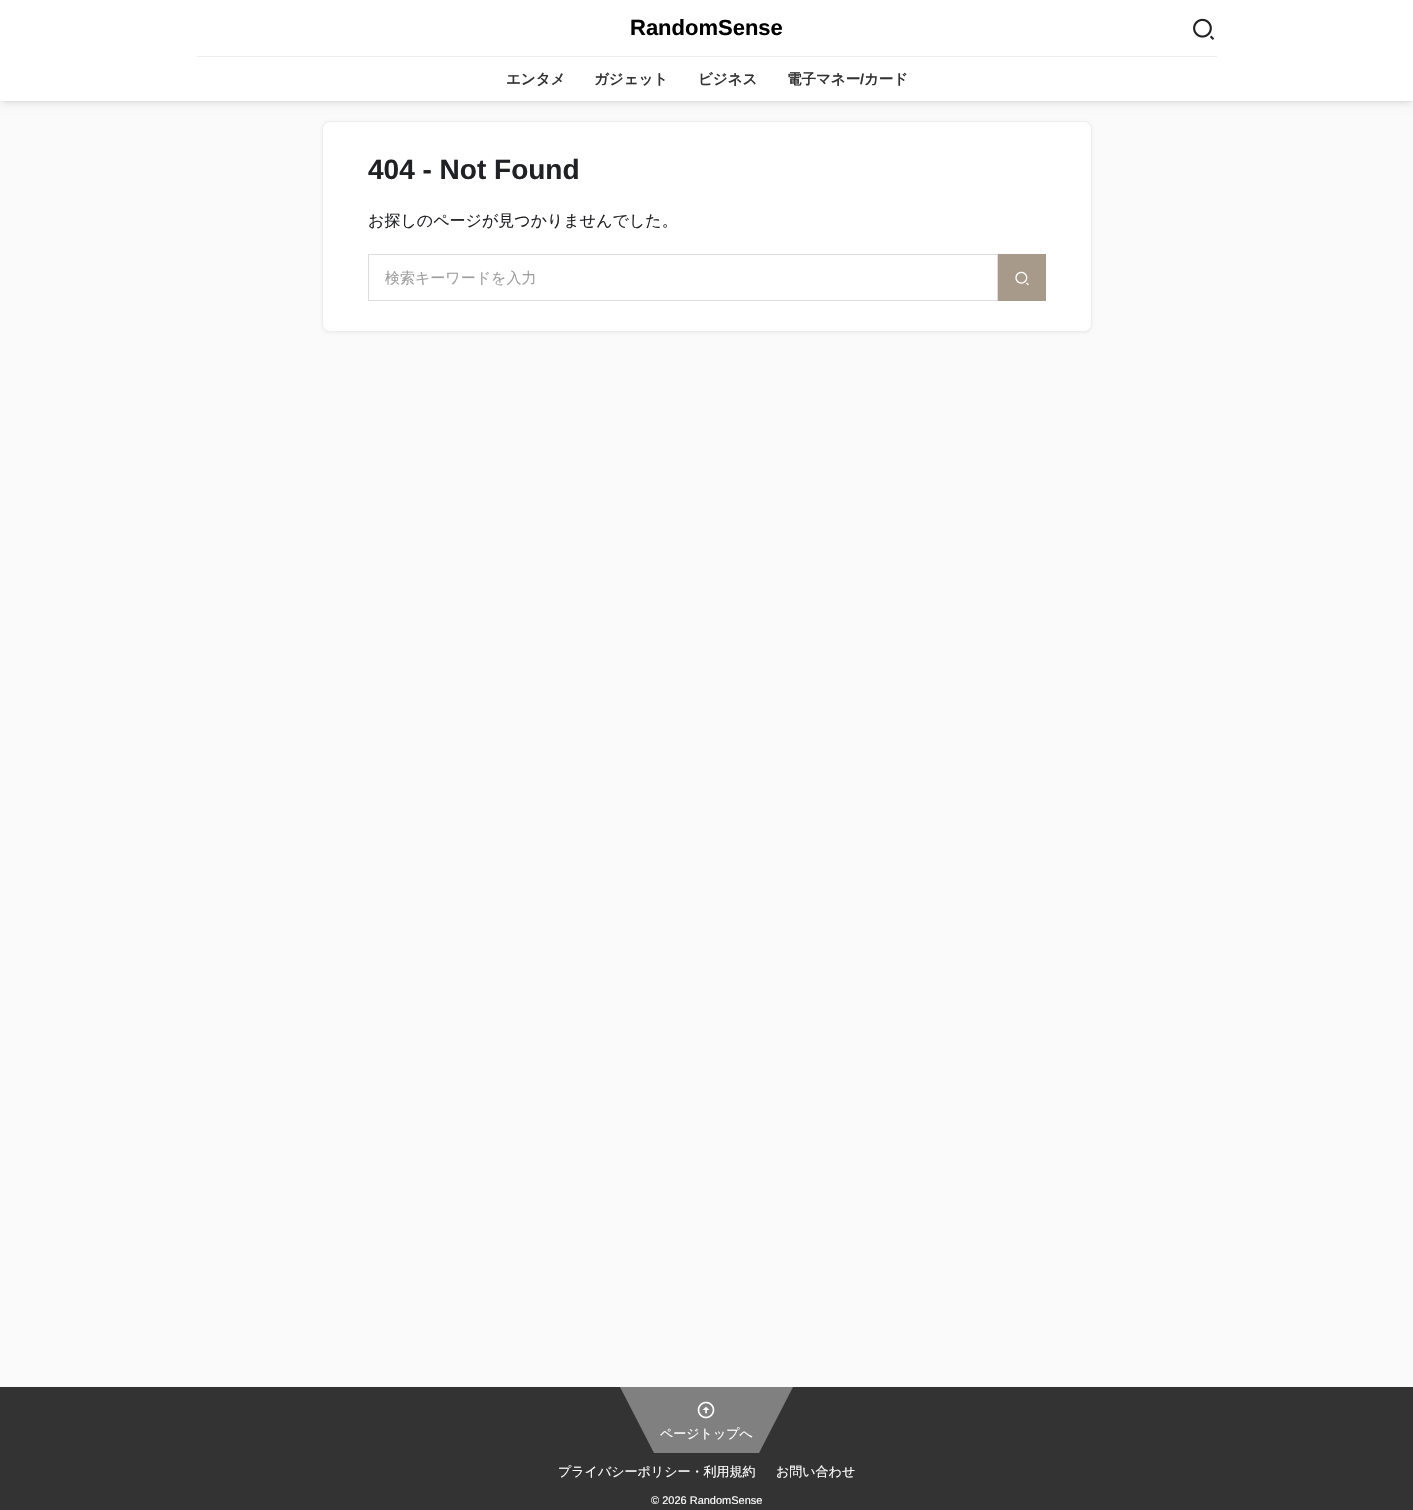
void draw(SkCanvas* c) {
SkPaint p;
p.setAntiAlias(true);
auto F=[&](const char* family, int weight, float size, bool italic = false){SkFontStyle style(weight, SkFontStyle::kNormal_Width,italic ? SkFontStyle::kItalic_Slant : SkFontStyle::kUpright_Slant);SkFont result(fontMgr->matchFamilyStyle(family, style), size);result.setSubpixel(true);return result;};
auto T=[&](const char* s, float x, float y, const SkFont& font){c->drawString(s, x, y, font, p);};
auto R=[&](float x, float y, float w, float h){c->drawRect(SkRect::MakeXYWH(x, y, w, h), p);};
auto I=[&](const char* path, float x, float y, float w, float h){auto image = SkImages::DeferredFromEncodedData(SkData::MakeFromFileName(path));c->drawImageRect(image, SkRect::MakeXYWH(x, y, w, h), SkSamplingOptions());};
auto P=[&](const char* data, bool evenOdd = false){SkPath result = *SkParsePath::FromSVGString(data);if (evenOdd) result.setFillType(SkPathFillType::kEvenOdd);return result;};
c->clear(0xfffafafa);
p.setColor(0x1a000000);
p.setMaskFilter(SkMaskFilter::MakeBlur(kNormal_SkBlurStyle, 2));
c->drawRect(SkRect::MakeXYWH(4,8,1405,93),p);
p.setMaskFilter(nullptr);
p.setMaskFilter(SkMaskFilter::MakeBlur(kNormal_SkBlurStyle, 4));
c->drawRect(SkRect::MakeXYWH(0,1,1413,101),p);
p.setMaskFilter(nullptr);
p.setColor(0xffffffff);
R(0,0,1413,101);
auto f1 = F("Liberation Sans",700,22);
p.setColor(0xff000000);
T("RandomSense",630,35,f1);
I("1.png",1193,18,22,22);
p.setColor(0xffeeeeee);
R(197,56,1020,1);
auto f2 = F("WenQuanYi Zen Hei",700,14.5);
p.setColor(0xff333333);
T("エンタメ",506,84,f2);
T("ガジェット",594,84,f2);
T("ビジネス",698,84,f2);
T("電子マネー",787,84,f2);
auto f3 = F("Liberation Sans",700,14.5);
T("/",860,84,f3);
T("カード",864,84,f2);
p.setColor(0x0d000000);
p.setMaskFilter(SkMaskFilter::MakeBlur(kNormal_SkBlurStyle, 1.5));
c->drawRoundRect(SkRect::MakeXYWH(322,122,770,211),8,8,p);
p.setMaskFilter(nullptr);
p.setColor(0xffffffff);
c->drawRoundRect(SkRect::MakeXYWH(322.5,121.5,769,210),7.5,7.5,p);
p.setStroke(true);
p.setStrokeWidth(1);
p.setColor(0xffeeeeee);
c->drawRoundRect(SkRect::MakeXYWH(322.5,121.5,769,210),7.5,7.5,p);
auto f4 = F("Liberation Sans",700,28);
p.setStroke(false);
p.setColor(0xff202124);
T("404 - Not Found",368,179,f4);
auto f5 = F("WenQuanYi Zen Hei",500,16);
T("お探しのページが見つかりませんでした。",368,226,f5);
p.setStroke(true);
p.setColor(0xffdddddd);
c->drawRect(SkRect::MakeXYWH(368.5,254.5,629,46),p);
auto f6 = F("WenQuanYi Zen Hei",500,15);
p.setStroke(false);
p.setColor(0xff9e9e9e);
T("検索キーワードを入力",385,283,f6);
p.setColor(0xffa89a8a);
R(998,254,48,47);
I("2.png",1015,271,14,15);
p.setColor(0xff333333);
R(0,1387,1413,123);
p.setColor(0xff808080);
c->drawPath(P("M654 1453l-34-66h173l-34 66z"),p);
I("3.png",697,1401,18,18);
auto f7 = F("WenQuanYi Zen Hei",500,13);
p.setColor(0xffffffff);
T("ページトップへ",660,1438,f7);
T("プライバシーポリシー・利用規約",558,1476,f7);
T("お問い合わせ",776,1476,f7);
auto f8 = F("Liberation Sans",400,11);
T("© 2026 RandomSense",651,1504,f8);
}
